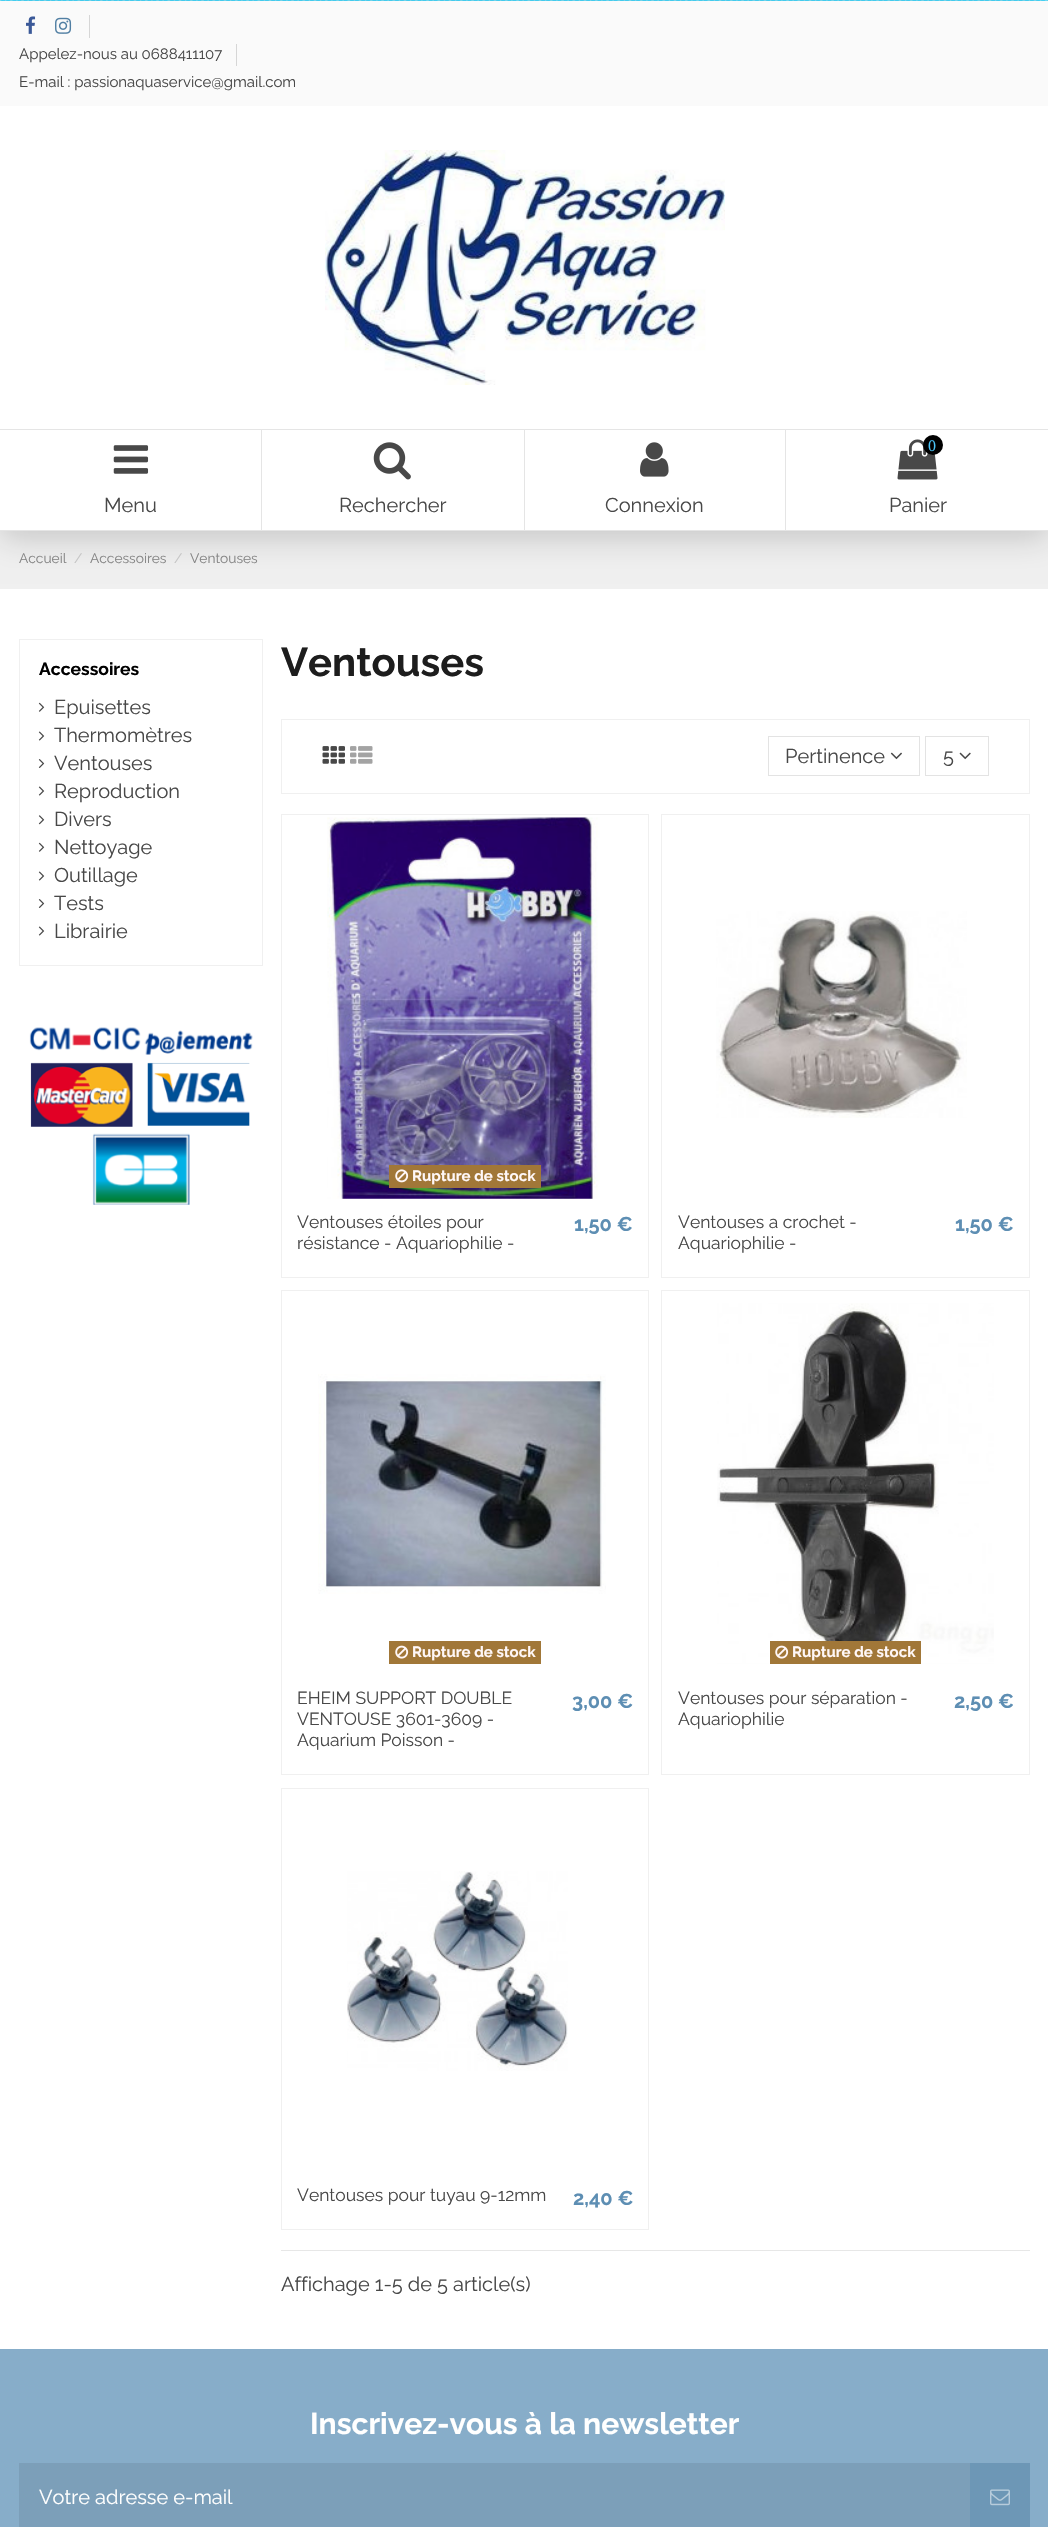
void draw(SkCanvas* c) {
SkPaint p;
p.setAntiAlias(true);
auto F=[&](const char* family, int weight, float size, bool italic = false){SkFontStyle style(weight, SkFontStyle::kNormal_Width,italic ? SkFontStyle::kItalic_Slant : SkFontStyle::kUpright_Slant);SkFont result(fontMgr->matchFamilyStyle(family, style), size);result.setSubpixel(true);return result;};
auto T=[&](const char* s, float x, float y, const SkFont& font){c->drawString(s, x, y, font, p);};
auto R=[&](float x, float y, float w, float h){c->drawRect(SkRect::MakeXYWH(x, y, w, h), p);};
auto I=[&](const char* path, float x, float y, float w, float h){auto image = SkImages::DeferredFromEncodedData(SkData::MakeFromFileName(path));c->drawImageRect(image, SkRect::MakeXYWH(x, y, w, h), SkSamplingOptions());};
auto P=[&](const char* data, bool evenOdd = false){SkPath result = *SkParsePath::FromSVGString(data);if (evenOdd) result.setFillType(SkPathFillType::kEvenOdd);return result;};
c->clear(0xff46d8fc);
I("1.png",0,0,1048,1);
p.setColor(0xfff0f0f0);
R(0,531,1048,58);
p.setColor(0x2e000000);
p.setMaskFilter(SkMaskFilter::MakeBlur(kNormal_SkBlurStyle, 15.5));
c->drawRect(SkRect::MakeXYWH(0,8,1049,530),p);
p.setMaskFilter(nullptr);
p.setColor(0xffffffff);
R(0,106,1048,425);
p.setColor(0xfffafafa);
R(0,1,1048,105);
I("2.png",26,16,10,18);
I("3.png",55,17,17,17);
p.setColor(0xffd6d6d6);
R(89,15,1,23);
auto f1 = F("Raleway",400,15);
p.setColor(0xff484848);
T("Appelez-nous au 0688411107",19,59,f1);
p.setColor(0xffd6d6d6);
R(236,44,1,22);
p.setColor(0xff484848);
T("E-mail : passionaquaservice@gmail.com",19,87,f1);
I("4.png",325,150,400,235);
p.setColor(0xffe5e5e5);
c->drawPath(P("M0 429h262l-1 1h-261z"),p);
p.setColor(0x1c151515);
c->drawPath(P("M262 429v102l-1-1v-100z"),p);
c->drawPath(P("M262 531h-262v-1h261z"),p);
I("5.png",113,445,36,29);
auto f2 = F("Raleway",400,20);
p.setColor(0xff484848);
T("Menu",104,512,f2);
p.setColor(0xffe5e5e5);
c->drawPath(P("M262 429h263l-1 1h-262z"),p);
p.setColor(0x1c151515);
c->drawPath(P("M525 429v102l-1-1v-100z"),p);
c->drawPath(P("M525 531h-263v-1h262z"),p);
I("6.png",373,442,38,38);
p.setColor(0xff484848);
T("Rechercher",339,512,f2);
p.setColor(0xffe5e5e5);
c->drawPath(P("M525 429h261l-1 1h-260z"),p);
p.setColor(0x1c151515);
c->drawPath(P("M786 429v102l-1-1v-100z"),p);
c->drawPath(P("M786 531h-261v-1h260z"),p);
I("7.png",640,442,29,35);
p.setColor(0xff484848);
T("Connexion",605,512,f2);
p.setColor(0xffe5e5e5);
R(786,429,262,1);
R(786,530,262,1);
I("8.png",897,439,41,41);
p.setColor(0xff000000);
c->drawCircle(933,445,10,p);
auto f3 = F("Liberation Serif",400,16);
p.setColor(0xff4ac3f7);
T("0",928,451,f3);
p.setColor(0xff484848);
T("Panier",889,512,f2);
p.setColor(0xffffffff);
R(0,589,1048,1760);
auto f4 = F("Raleway",400,13.75);
p.setColor(0xff858585);
T("Accueil",19,563,f4);
p.setColor(0xffc5c5c5);
T("/",74,563,f4);
p.setColor(0xff858585);
T("Accessoires",90,563,f4);
p.setColor(0xffc5c5c5);
T("/",174,563,f4);
p.setColor(0xff858585);
T("Ventouses",190,563,f4);
p.setStroke(true);
p.setStrokeWidth(1);
p.setColor(0xfff0f0f0);
c->drawRect(SkRect::MakeXYWH(19.5,639.5,243,326),p);
auto f5 = F("Raleway",700,17.5);
p.setStroke(false);
p.setColor(0xff000000);
T("Accessoires",39,675,f5);
I("9.png",38,702,7,10);
p.setColor(0xff484848);
T("Epuisettes",54,714,f2);
I("10.png",38,731,7,10);
T("Thermomètres",54,742,f2);
I("11.png",38,759,7,9);
T("Ventouses",54,770,f2);
I("10.png",38,786,7,10);
T("Reproduction",54,798,f2);
I("12.png",38,815,7,10);
T("Divers",54,826,f2);
I("9.png",38,842,7,10);
T("Nettoyage",54,854,f2);
I("10.png",38,871,7,10);
T("Outillage",54,882,f2);
I("11.png",38,899,7,9);
T("Tests",54,910,f2);
I("10.png",38,926,7,10);
T("Librairie",54,938,f2);
I("13.png",29,1027,224,178);
auto f6 = F("Raleway",700,40);
p.setColor(0xff1d1d1d);
T("Ventouses",281,676,f6);
p.setStroke(true);
p.setColor(0xfff0f0f0);
c->drawRect(SkRect::MakeXYWH(281.5,719.5,748,74),p);
I("14.png",322,746,23,18);
I("15.png",350,746,23,18);
p.setColor(0xffe3e3e3);
c->drawRect(SkRect::MakeXYWH(768.5,736.5,151,39),p);
p.setStroke(false);
p.setColor(0xff484848);
T("Pertinence",785,763,f2);
I("16.png",890,752,12,8);
p.setStroke(true);
p.setColor(0xffe3e3e3);
c->drawRect(SkRect::MakeXYWH(925.5,736.5,63,39),p);
p.setStroke(false);
p.setColor(0xff484848);
T("5",943,763,f2);
I("17.png",959,752,12,8);
p.setStroke(true);
p.setColor(0xfff0f0f0);
c->drawRect(SkRect::MakeXYWH(281.5,814.5,367,463),p);
I("18.png",327,817,273,382);
p.setStroke(false);
p.setColor(0xffa17738);
R(389,1165,152,23);
I("19.png",395,1169,14,14);
auto f7 = F("Raleway",700,15);
p.setColor(0xfffff7f7);
T("Rupture de stock",412,1181,f7);
auto f8 = F("Raleway",400,17.5);
p.setColor(0xff484848);
T("Ventouses étoiles pour",297,1228,f8);
T("résistance - Aquariophilie -",297,1249,f8);
auto f9 = F("Raleway",700,20);
p.setColor(0xff5d8eb3);
T("1,50 €",574,1231,f9);
p.setStroke(true);
p.setColor(0xfff0f0f0);
c->drawRect(SkRect::MakeXYWH(661.5,814.5,368,463),p);
I("20.png",716,911,251,207);
p.setStroke(false);
p.setColor(0xff484848);
T("Ventouses a crochet -",678,1228,f8);
T("Aquariophilie -",678,1249,f8);
p.setColor(0xff5d8eb3);
T("1,50 €",955,1231,f9);
p.setStroke(true);
p.setColor(0xfff0f0f0);
c->drawRect(SkRect::MakeXYWH(281.5,1290.5,367,484),p);
I("21.png",318,1374,288,220);
p.setStroke(false);
p.setColor(0xffa17738);
R(389,1641,152,23);
I("22.png",395,1645,14,14);
p.setColor(0xfffff7f7);
T("Rupture de stock",412,1657,f7);
p.setColor(0xff484848);
T("EHEIM SUPPORT DOUBLE",297,1704,f8);
T("VENTOUSE 3601-3609 -",297,1725,f8);
T("Aquarium Poisson -",297,1746,f8);
p.setColor(0xff5d8eb3);
T("3,00 €",572,1708,f9);
p.setStroke(true);
p.setColor(0xfff0f0f0);
c->drawRect(SkRect::MakeXYWH(661.5,1290.5,368,484),p);
I("23.png",717,1303,277,361);
p.setStroke(false);
p.setColor(0xffa17738);
R(770,1641,151,23);
I("22.png",775,1645,14,14);
p.setColor(0xfffff7f7);
T("Rupture de stock",792,1657,f7);
p.setColor(0xff484848);
T("Ventouses pour séparation -",678,1704,f8);
T("Aquariophilie",678,1725,f8);
p.setColor(0xff5d8eb3);
T("2,50 €",954,1708,f9);
p.setStroke(true);
p.setColor(0xfff0f0f0);
c->drawRect(SkRect::MakeXYWH(281.5,1788.5,367,441),p);
I("24.png",347,1871,221,200);
p.setStroke(false);
p.setColor(0xff484848);
T("Ventouses pour tuyau 9-12mm",297,2201,f8);
p.setColor(0xff5d8eb3);
T("2,40 €",573,2205,f9);
p.setColor(0xffe7e7e7);
R(281,2250,749,1);
p.setColor(0xff484848);
T("Affichage 1-5 de 5 article(s)",281,2291,f2);
p.setColor(0xff87adc9);
R(0,2349,1048,178);
auto f10 = F("Raleway",700,30);
p.setColor(0xffffffff);
T("Inscrivez-vous à la newsletter",310,2434,f10);
p.setColor(0xff7c9fb9);
R(19,2463,951,64);
p.setColor(0xffffffff);
T("Votre adresse e-mail",39,2504,f2);
p.setColor(0xff6d97b6);
R(970,2463,60,64);
I("25.png",990,2489,20,17);
}
